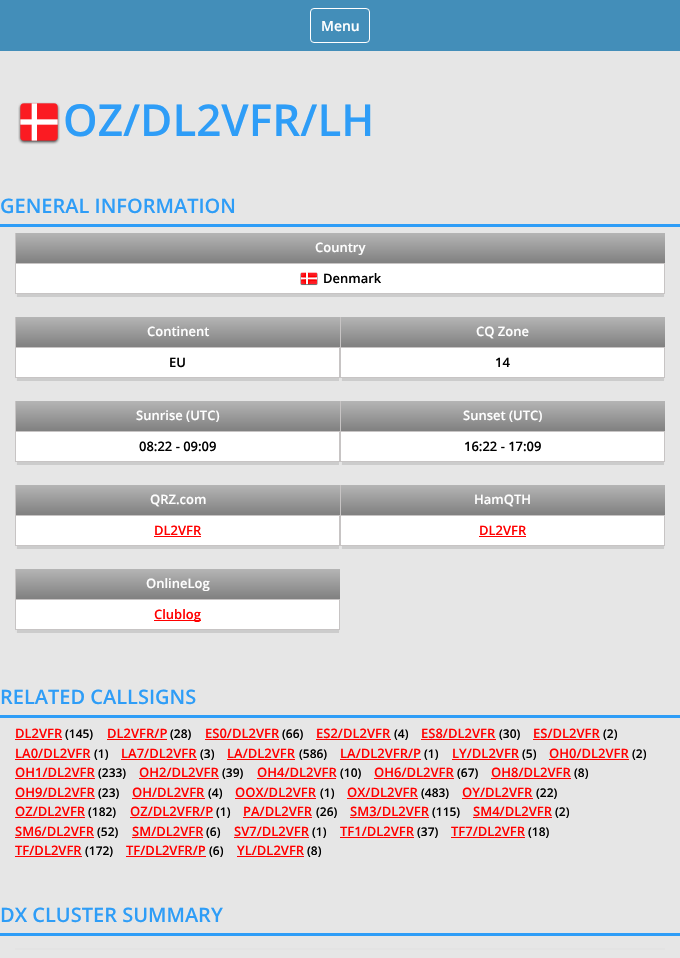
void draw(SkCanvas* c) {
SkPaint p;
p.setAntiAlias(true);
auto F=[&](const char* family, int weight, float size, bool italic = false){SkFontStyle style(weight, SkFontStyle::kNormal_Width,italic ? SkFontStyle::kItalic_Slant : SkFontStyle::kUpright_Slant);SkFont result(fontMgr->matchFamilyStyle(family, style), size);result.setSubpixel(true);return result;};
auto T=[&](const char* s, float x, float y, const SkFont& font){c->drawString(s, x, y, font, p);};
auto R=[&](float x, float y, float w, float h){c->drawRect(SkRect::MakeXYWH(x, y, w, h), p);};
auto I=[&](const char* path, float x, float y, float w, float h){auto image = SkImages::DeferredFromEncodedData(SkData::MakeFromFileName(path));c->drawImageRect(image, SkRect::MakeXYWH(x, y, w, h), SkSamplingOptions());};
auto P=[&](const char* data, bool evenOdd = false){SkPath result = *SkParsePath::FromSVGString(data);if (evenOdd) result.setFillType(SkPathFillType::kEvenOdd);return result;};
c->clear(0xffe6e6e6);
p.setColor(0xff438eb9);
R(0,0,680,51);
p.setStroke(true);
p.setStrokeWidth(1);
p.setColor(0xffffffff);
c->drawRoundRect(SkRect::MakeXYWH(310.5,8.5,59,34),3.5,3.5,p);
auto f1 = F("Open Sans",600,14);
p.setStroke(false);
T("Menu",321,31,f1);
I("1.png",18,102,42,43);
auto f2 = F("Open Sans",600,44);
p.setColor(0xff2e9df7);
T("OZ/DL2VFR/LH",63,136,f2);
R(0,224,680,3);
auto f3 = F("Open Sans",600,20);
T("GENERAL INFORMATION",0,213,f3);
{
const SkColor colors[] = {0xffe5e5e5,0xff808080};
const float stops[] = {0,1};
const SkPoint ends[] = {{340,294}, {340,355}};
p.setShader(SkGradientShader::MakeLinear(ends, colors, stops, 2, SkTileMode::kClamp));
p.setAlpha(255);
}
c->drawPath(P("M15 294h650c0 1.5-1.5 3-3 3h-644c-1.5 0-3-1.5-3-3z"),p);
p.setShader(nullptr);
p.setColor(0xffcccccc);
R(17,294,647,3);
{
const SkColor colors[] = {0xffb5b5b5,0xff808080};
const float stops[] = {0,1};
const SkPoint ends[] = {{341,233}, {341,263}};
p.setShader(SkGradientShader::MakeLinear(ends, colors, stops, 2, SkTileMode::kClamp));
p.setAlpha(255);
}
R(16,233,649,30);
p.setShader(nullptr);
p.setColor(0xffc7c4c4);
R(15,233,1,30);
auto f4 = F("Open Sans",600,13);
p.setColor(0xffffffff);
T("Country",315,252,f4);
c->drawRect(SkRect::MakeXYWH(15.5,263.5,649,30),p);
p.setStroke(true);
p.setColor(0xffc7c4c4);
c->drawRect(SkRect::MakeXYWH(15.5,263.5,649,30),p);
I("2.png",300,272,18,14);
p.setStroke(false);
p.setColor(0xff000000);
T("Denmark",323,283,f4);
{
const SkColor colors[] = {0xffe5e5e5,0xff808080};
const float stops[] = {0,1};
const SkPoint ends[] = {{178,378}, {178,439}};
p.setShader(SkGradientShader::MakeLinear(ends, colors, stops, 2, SkTileMode::kClamp));
p.setAlpha(255);
}
c->drawPath(P("M15 378h325c0 1.5-1.5 3-3 3h-319c-1.5 0-3-1.5-3-3z"),p);
p.setShader(nullptr);
p.setColor(0xffcccccc);
R(17,378,322,3);
{
const SkColor colors[] = {0xffb5b5b5,0xff808080};
const float stops[] = {0,1};
const SkPoint ends[] = {{178,317}, {178,347}};
p.setShader(SkGradientShader::MakeLinear(ends, colors, stops, 2, SkTileMode::kClamp));
p.setAlpha(255);
}
R(16,317,324,30);
p.setShader(nullptr);
p.setColor(0xffc7c4c4);
R(15,317,1,30);
p.setColor(0xffffffff);
T("Continent",147,336,f4);
c->drawRect(SkRect::MakeXYWH(15.5,347.5,324,30),p);
p.setStroke(true);
p.setColor(0xffc7c4c4);
c->drawRect(SkRect::MakeXYWH(15.5,347.5,324,30),p);
p.setStroke(false);
p.setColor(0xff000000);
T("EU",169,367,f4);
{
const SkColor colors[] = {0xffe5e5e5,0xff808080};
const float stops[] = {0,1};
const SkPoint ends[] = {{503,378}, {503,439}};
p.setShader(SkGradientShader::MakeLinear(ends, colors, stops, 2, SkTileMode::kClamp));
p.setAlpha(255);
}
c->drawPath(P("M340 378h325c0 1.5-1.5 3-3 3h-319c-1.5 0-3-1.5-3-3z"),p);
p.setShader(nullptr);
p.setColor(0xffcccccc);
R(342,378,322,3);
{
const SkColor colors[] = {0xffb5b5b5,0xff808080};
const float stops[] = {0,1};
const SkPoint ends[] = {{503,317}, {503,347}};
p.setShader(SkGradientShader::MakeLinear(ends, colors, stops, 2, SkTileMode::kClamp));
p.setAlpha(255);
}
R(341,317,324,30);
p.setShader(nullptr);
p.setColor(0xffc7c4c4);
R(340,317,1,30);
p.setColor(0xffffffff);
T("CQ Zone",476,336,f4);
c->drawRect(SkRect::MakeXYWH(340.5,347.5,324,30),p);
p.setStroke(true);
p.setColor(0xffc7c4c4);
c->drawRect(SkRect::MakeXYWH(340.5,347.5,324,30),p);
p.setStroke(false);
p.setColor(0xff000000);
T("14",495,367,f4);
{
const SkColor colors[] = {0xffe5e5e5,0xff808080};
const float stops[] = {0,1};
const SkPoint ends[] = {{178,462}, {178,523}};
p.setShader(SkGradientShader::MakeLinear(ends, colors, stops, 2, SkTileMode::kClamp));
p.setAlpha(255);
}
c->drawPath(P("M15 462h325c0 1.5-1.5 3-3 3h-319c-1.5 0-3-1.5-3-3z"),p);
p.setShader(nullptr);
p.setColor(0xffcccccc);
R(17,462,322,3);
{
const SkColor colors[] = {0xffb5b5b5,0xff808080};
const float stops[] = {0,1};
const SkPoint ends[] = {{178,401}, {178,431}};
p.setShader(SkGradientShader::MakeLinear(ends, colors, stops, 2, SkTileMode::kClamp));
p.setAlpha(255);
}
R(16,401,324,30);
p.setShader(nullptr);
p.setColor(0xffc7c4c4);
R(15,401,1,30);
p.setColor(0xffffffff);
T("Sunrise (UTC)",136,420,f4);
c->drawRect(SkRect::MakeXYWH(15.5,431.5,324,30),p);
p.setStroke(true);
p.setColor(0xffc7c4c4);
c->drawRect(SkRect::MakeXYWH(15.5,431.5,324,30),p);
p.setStroke(false);
p.setColor(0xff000000);
T("08:22 - 09:09",139,451,f4);
{
const SkColor colors[] = {0xffe5e5e5,0xff808080};
const float stops[] = {0,1};
const SkPoint ends[] = {{503,462}, {503,523}};
p.setShader(SkGradientShader::MakeLinear(ends, colors, stops, 2, SkTileMode::kClamp));
p.setAlpha(255);
}
c->drawPath(P("M340 462h325c0 1.5-1.5 3-3 3h-319c-1.5 0-3-1.5-3-3z"),p);
p.setShader(nullptr);
p.setColor(0xffcccccc);
R(342,462,322,3);
{
const SkColor colors[] = {0xffb5b5b5,0xff808080};
const float stops[] = {0,1};
const SkPoint ends[] = {{503,401}, {503,431}};
p.setShader(SkGradientShader::MakeLinear(ends, colors, stops, 2, SkTileMode::kClamp));
p.setAlpha(255);
}
R(341,401,324,30);
p.setShader(nullptr);
p.setColor(0xffc7c4c4);
R(340,401,1,30);
p.setColor(0xffffffff);
T("Sunset (UTC)",463,420,f4);
c->drawRect(SkRect::MakeXYWH(340.5,431.5,324,30),p);
p.setStroke(true);
p.setColor(0xffc7c4c4);
c->drawRect(SkRect::MakeXYWH(340.5,431.5,324,30),p);
p.setStroke(false);
p.setColor(0xff000000);
T("16:22 - 17:09",464,451,f4);
{
const SkColor colors[] = {0xffe5e5e5,0xff808080};
const float stops[] = {0,1};
const SkPoint ends[] = {{178,546}, {178,607}};
p.setShader(SkGradientShader::MakeLinear(ends, colors, stops, 2, SkTileMode::kClamp));
p.setAlpha(255);
}
c->drawPath(P("M15 546h325c0 1.5-1.5 3-3 3h-319c-1.5 0-3-1.5-3-3z"),p);
p.setShader(nullptr);
p.setColor(0xffcccccc);
R(17,546,322,3);
{
const SkColor colors[] = {0xffb5b5b5,0xff808080};
const float stops[] = {0,1};
const SkPoint ends[] = {{178,485}, {178,515}};
p.setShader(SkGradientShader::MakeLinear(ends, colors, stops, 2, SkTileMode::kClamp));
p.setAlpha(255);
}
R(16,485,324,30);
p.setShader(nullptr);
p.setColor(0xffc7c4c4);
R(15,485,1,30);
p.setColor(0xffffffff);
T("QRZ.com",150,504,f4);
c->drawRect(SkRect::MakeXYWH(15.5,515.5,324,30),p);
p.setStroke(true);
p.setColor(0xffc7c4c4);
c->drawRect(SkRect::MakeXYWH(15.5,515.5,324,30),p);
p.setStroke(false);
p.setColor(0xffff0000);
T("DL2VFR",154,535,f4);
R(154,536,47,1);
{
const SkColor colors[] = {0xffe5e5e5,0xff808080};
const float stops[] = {0,1};
const SkPoint ends[] = {{503,546}, {503,607}};
p.setShader(SkGradientShader::MakeLinear(ends, colors, stops, 2, SkTileMode::kClamp));
p.setAlpha(255);
}
c->drawPath(P("M340 546h325c0 1.5-1.5 3-3 3h-319c-1.5 0-3-1.5-3-3z"),p);
p.setShader(nullptr);
p.setColor(0xffcccccc);
R(342,546,322,3);
{
const SkColor colors[] = {0xffb5b5b5,0xff808080};
const float stops[] = {0,1};
const SkPoint ends[] = {{503,485}, {503,515}};
p.setShader(SkGradientShader::MakeLinear(ends, colors, stops, 2, SkTileMode::kClamp));
p.setAlpha(255);
}
R(341,485,324,30);
p.setShader(nullptr);
p.setColor(0xffc7c4c4);
R(340,485,1,30);
p.setColor(0xffffffff);
T("HamQTH",474,504,f4);
c->drawRect(SkRect::MakeXYWH(340.5,515.5,324,30),p);
p.setStroke(true);
p.setColor(0xffc7c4c4);
c->drawRect(SkRect::MakeXYWH(340.5,515.5,324,30),p);
p.setStroke(false);
p.setColor(0xffff0000);
T("DL2VFR",479,535,f4);
R(479,536,47,1);
{
const SkColor colors[] = {0xffe5e5e5,0xff808080};
const float stops[] = {0,1};
const SkPoint ends[] = {{178,630}, {178,691}};
p.setShader(SkGradientShader::MakeLinear(ends, colors, stops, 2, SkTileMode::kClamp));
p.setAlpha(255);
}
c->drawPath(P("M15 630h325c0 1.5-1.5 3-3 3h-319c-1.5 0-3-1.5-3-3z"),p);
p.setShader(nullptr);
p.setColor(0xffcccccc);
R(17,630,322,3);
{
const SkColor colors[] = {0xffb5b5b5,0xff808080};
const float stops[] = {0,1};
const SkPoint ends[] = {{178,569}, {178,599}};
p.setShader(SkGradientShader::MakeLinear(ends, colors, stops, 2, SkTileMode::kClamp));
p.setAlpha(255);
}
R(16,569,324,30);
p.setShader(nullptr);
p.setColor(0xffc7c4c4);
R(15,569,1,30);
p.setColor(0xffffffff);
T("OnlineLog",146,588,f4);
c->drawRect(SkRect::MakeXYWH(15.5,599.5,324,30),p);
p.setStroke(true);
p.setColor(0xffc7c4c4);
c->drawRect(SkRect::MakeXYWH(15.5,599.5,324,30),p);
p.setStroke(false);
p.setColor(0xffff0000);
R(154,620,47,1);
T("Clublog",154,619,f4);
p.setColor(0xff2e9df7);
R(0,715,680,3);
T("RELATED CALLSIGNS",0,704,f3);
p.setColor(0xffff0000);
T("DL2VFR",15,738,f4);
R(15,739,47,1);
auto f5 = F("Open Sans",600,12);
p.setColor(0xff000000);
T("(145)",65,738,f5);
p.setColor(0xffff0000);
T("DL2VFR/P",107,738,f4);
R(107,739,60,1);
p.setColor(0xff000000);
T("(28)",170,738,f5);
p.setColor(0xffff0000);
T("ES0/DL2VFR",205,738,f4);
R(205,739,74,1);
p.setColor(0xff000000);
T("(66)",282,738,f5);
p.setColor(0xffff0000);
T("ES2/DL2VFR",316,738,f4);
R(316,739,75,1);
p.setColor(0xff000000);
T("(4)",394,738,f5);
p.setColor(0xffff0000);
T("ES8/DL2VFR",421,738,f4);
R(421,739,75,1);
p.setColor(0xff000000);
T("(30)",499,738,f5);
p.setColor(0xffff0000);
T("ES/DL2VFR",533,738,f4);
R(533,739,67,1);
p.setColor(0xff000000);
T("(2)",603,738,f5);
p.setColor(0xffff0000);
T("LA0/DL2VFR",15,758,f4);
R(15,759,75,1);
p.setColor(0xff000000);
T("(1)",94,758,f5);
p.setColor(0xffff0000);
T("LA7/DL2VFR",121,758,f4);
R(121,759,76,1);
p.setColor(0xff000000);
T("(3)",200,758,f5);
p.setColor(0xffff0000);
T("LA/DL2VFR",227,758,f4);
R(227,759,68,1);
p.setColor(0xff000000);
T("(586)",299,758,f5);
p.setColor(0xffff0000);
T("LA/DL2VFR/P",340,758,f4);
R(340,759,81,1);
p.setColor(0xff000000);
T("(1)",424,758,f5);
p.setColor(0xffff0000);
T("LY/DL2VFR",452,758,f4);
R(452,759,67,1);
p.setColor(0xff000000);
T("(5)",522,758,f5);
p.setColor(0xffff0000);
T("OH0/DL2VFR",549,758,f4);
R(549,759,80,1);
p.setColor(0xff000000);
T("(2)",632,758,f5);
p.setColor(0xffff0000);
T("OH1/DL2VFR",15,777,f4);
R(15,778,80,1);
p.setColor(0xff000000);
T("(233)",98,777,f5);
p.setColor(0xffff0000);
T("OH2/DL2VFR",139,777,f4);
R(139,778,80,1);
p.setColor(0xff000000);
T("(39)",222,777,f5);
p.setColor(0xffff0000);
T("OH4/DL2VFR",257,777,f4);
R(257,778,79,1);
p.setColor(0xff000000);
T("(10)",340,777,f5);
p.setColor(0xffff0000);
T("OH6/DL2VFR",374,777,f4);
R(374,778,80,1);
p.setColor(0xff000000);
T("(67)",457,777,f5);
p.setColor(0xffff0000);
T("OH8/DL2VFR",491,777,f4);
R(491,778,80,1);
p.setColor(0xff000000);
T("(8)",574,777,f5);
p.setColor(0xffff0000);
T("OH9/DL2VFR",15,797,f4);
R(15,798,80,1);
p.setColor(0xff000000);
T("(23)",98,797,f5);
p.setColor(0xffff0000);
T("OH/DL2VFR",132,797,f4);
R(132,798,73,1);
p.setColor(0xff000000);
T("(4)",208,797,f5);
p.setColor(0xffff0000);
T("OOX/DL2VFR",235,797,f4);
R(235,798,81,1);
p.setColor(0xff000000);
T("(1)",320,797,f5);
p.setColor(0xffff0000);
T("OX/DL2VFR",347,797,f4);
R(347,798,71,1);
p.setColor(0xff000000);
T("(483)",421,797,f5);
p.setColor(0xffff0000);
T("OY/DL2VFR",462,797,f4);
R(462,798,71,1);
p.setColor(0xff000000);
T("(22)",536,797,f5);
p.setColor(0xffff0000);
T("OZ/DL2VFR",15,816,f4);
R(15,817,70,1);
p.setColor(0xff000000);
T("(182)",88,816,f5);
p.setColor(0xffff0000);
T("OZ/DL2VFR/P",130,816,f4);
R(130,817,83,1);
p.setColor(0xff000000);
T("(1)",216,816,f5);
p.setColor(0xffff0000);
T("PA/DL2VFR",243,816,f4);
R(243,817,69,1);
p.setColor(0xff000000);
T("(26)",316,816,f5);
p.setColor(0xffff0000);
T("SM3/DL2VFR",350,816,f4);
R(350,817,79,1);
p.setColor(0xff000000);
T("(115)",432,816,f5);
p.setColor(0xffff0000);
T("SM4/DL2VFR",473,816,f4);
R(473,817,79,1);
p.setColor(0xff000000);
T("(2)",555,816,f5);
p.setColor(0xffff0000);
T("SM6/DL2VFR",15,836,f4);
R(15,837,79,1);
p.setColor(0xff000000);
T("(52)",97,836,f5);
p.setColor(0xffff0000);
T("SM/DL2VFR",132,836,f4);
R(132,837,71,1);
p.setColor(0xff000000);
T("(6)",206,836,f5);
p.setColor(0xffff0000);
T("SV7/DL2VFR",234,836,f4);
R(234,837,75,1);
p.setColor(0xff000000);
T("(1)",312,836,f5);
p.setColor(0xffff0000);
T("TF1/DL2VFR",340,836,f4);
R(340,837,74,1);
p.setColor(0xff000000);
T("(37)",417,836,f5);
p.setColor(0xffff0000);
T("TF7/DL2VFR",451,836,f4);
R(451,837,74,1);
p.setColor(0xff000000);
T("(18)",528,836,f5);
p.setColor(0xffff0000);
T("TF/DL2VFR",15,855,f4);
R(15,856,67,1);
p.setColor(0xff000000);
T("(172)",85,855,f5);
p.setColor(0xffff0000);
T("TF/DL2VFR/P",126,855,f4);
R(126,856,80,1);
p.setColor(0xff000000);
T("(6)",209,855,f5);
p.setColor(0xffff0000);
T("YL/DL2VFR",237,855,f4);
R(237,856,67,1);
p.setColor(0xff000000);
T("(8)",307,855,f5);
p.setColor(0xff2e9df7);
R(0,933,680,3);
T("DX CLUSTER SUMMARY",0,922,f3);
p.setColor(0xffe3e3e3);
R(15,948,650,2);
}
